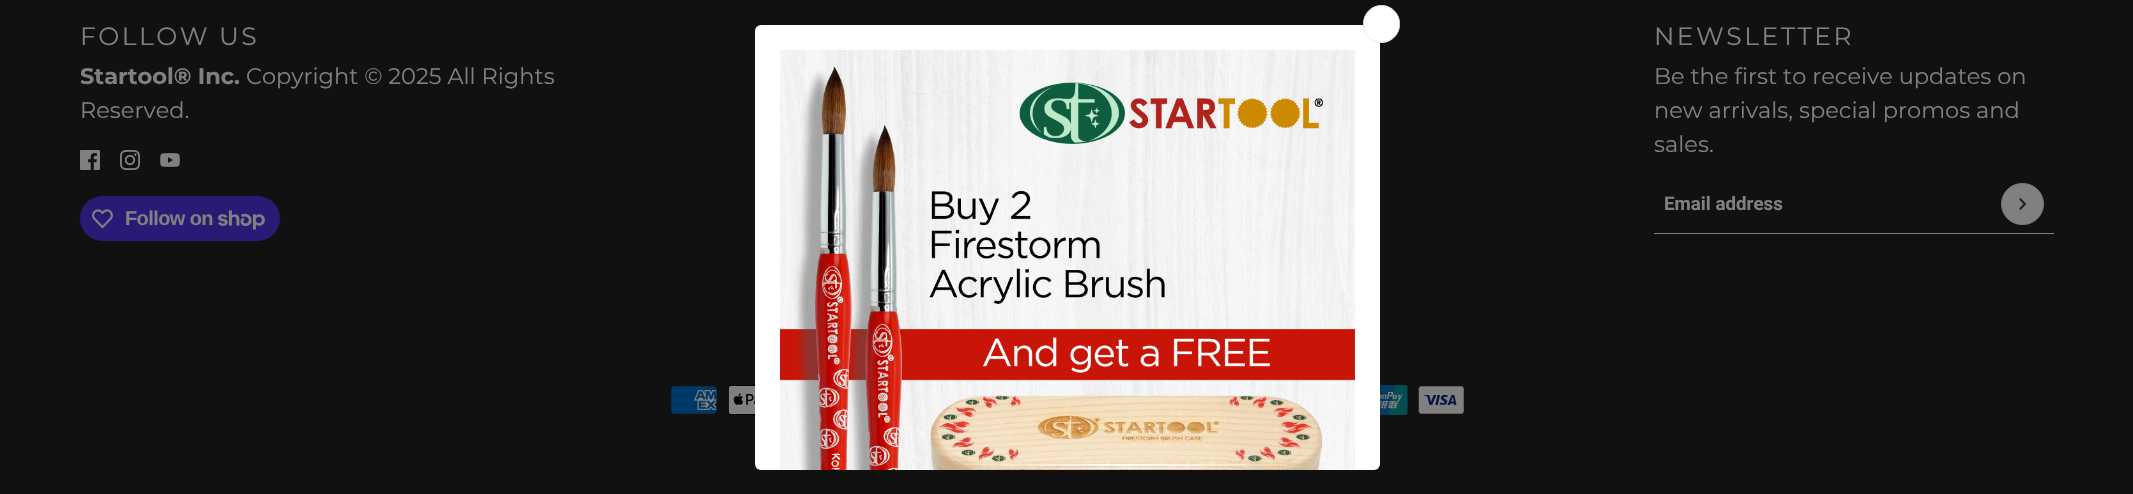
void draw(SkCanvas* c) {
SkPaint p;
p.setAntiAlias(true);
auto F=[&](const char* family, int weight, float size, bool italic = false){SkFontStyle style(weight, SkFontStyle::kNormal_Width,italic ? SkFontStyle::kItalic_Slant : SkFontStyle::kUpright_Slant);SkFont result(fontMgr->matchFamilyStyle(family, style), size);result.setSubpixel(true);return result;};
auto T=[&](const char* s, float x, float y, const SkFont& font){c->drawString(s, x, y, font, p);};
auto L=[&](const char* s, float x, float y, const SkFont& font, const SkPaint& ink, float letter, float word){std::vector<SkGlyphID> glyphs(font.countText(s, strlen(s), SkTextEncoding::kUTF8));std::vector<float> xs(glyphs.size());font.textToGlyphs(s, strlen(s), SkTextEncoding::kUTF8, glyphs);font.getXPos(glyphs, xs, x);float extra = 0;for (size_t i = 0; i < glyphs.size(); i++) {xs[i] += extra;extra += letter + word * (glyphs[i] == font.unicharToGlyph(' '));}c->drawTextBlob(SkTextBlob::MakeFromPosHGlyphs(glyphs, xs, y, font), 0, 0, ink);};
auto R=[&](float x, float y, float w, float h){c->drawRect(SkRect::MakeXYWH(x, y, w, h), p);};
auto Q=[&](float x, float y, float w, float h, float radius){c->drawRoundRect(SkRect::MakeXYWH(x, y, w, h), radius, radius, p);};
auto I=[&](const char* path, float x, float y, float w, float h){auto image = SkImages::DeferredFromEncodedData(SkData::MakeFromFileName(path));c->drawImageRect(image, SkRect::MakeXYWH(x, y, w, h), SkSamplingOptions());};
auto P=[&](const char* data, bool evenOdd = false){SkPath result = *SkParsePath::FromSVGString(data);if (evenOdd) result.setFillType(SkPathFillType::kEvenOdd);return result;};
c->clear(0xff111111);
p.setColor(0xffffffff);
Q(755,25,625,445,6);
I("1.png",779,50,576,420);
c->drawRoundRect(SkRect::MakeXYWH(1363.5,5.5,36,37),18,18,p);
p.setStroke(true);
p.setStrokeWidth(1);
p.setColor(0xffe2e8f0);
c->drawRoundRect(SkRect::MakeXYWH(1363.5,5.5,36,37),18,18,p);
auto f1 = F("Montserrat",400,25);
p.setStroke(false);
p.setColor(0xff808080);
L("FOLLOW US",80,45,f1,p,2.5,0);
auto f2 = F("Montserrat",700,22.5);
T("Startool® Inc.",80,84,f2);
auto f3 = F("Montserrat",400,22.5);
T("Copyright © 2025 All Rights",246,84,f3);
T("Reserved.",80,118,f3);
I("2.png",80,150,20,20);
I("3.png",120,150,20,20);
I("4.png",160,153,20,14);
p.setColor(0xff2a1a76);
Q(80,196,200,45,22.5);
I("5.png",92,209,21,20);
auto f4 = F("Liberation Sans",700,20);
p.setColor(0xff808080);
L("Follow on",125,225,f4,p,-.6,0);
I("6.png",218,210,47,20);
L("NEWSLETTER",1654,45,f1,p,2.5,0);
T("Be the first to receive updates on",1654,84,f3);
T("new arrivals, special promos and",1654,118,f3);
T("sales.",1654,152,f3);
R(1654,233,400,1);
auto f5 = F("Roboto",700,18.75);
T("Email address",1664,210,f5);
c->drawRoundRect(SkRect::MakeXYWH(2001.5,183.5,42,41),20.5,20.5,p);
p.setStroke(true);
p.setColor(0xff757575);
c->drawRoundRect(SkRect::MakeXYWH(2001.5,183.5,42,41),20.5,20.5,p);
p.setStroke(false);
p.setColor(0xff222222);
c->drawPath(P("M2019 208.5l5.5-5.5l1.5 1.5l-5.5 5.5z"),p);
c->drawPath(P("M2020.5 198l5.5 5.5l-1.5 1.5l-5.5-5.5z"),p);
I("7.png",671,386,46,28);
I("8.png",728,385,27,30);
I("9.png",1380,385,28,30);
I("10.png",1418,386,46,28);
}
